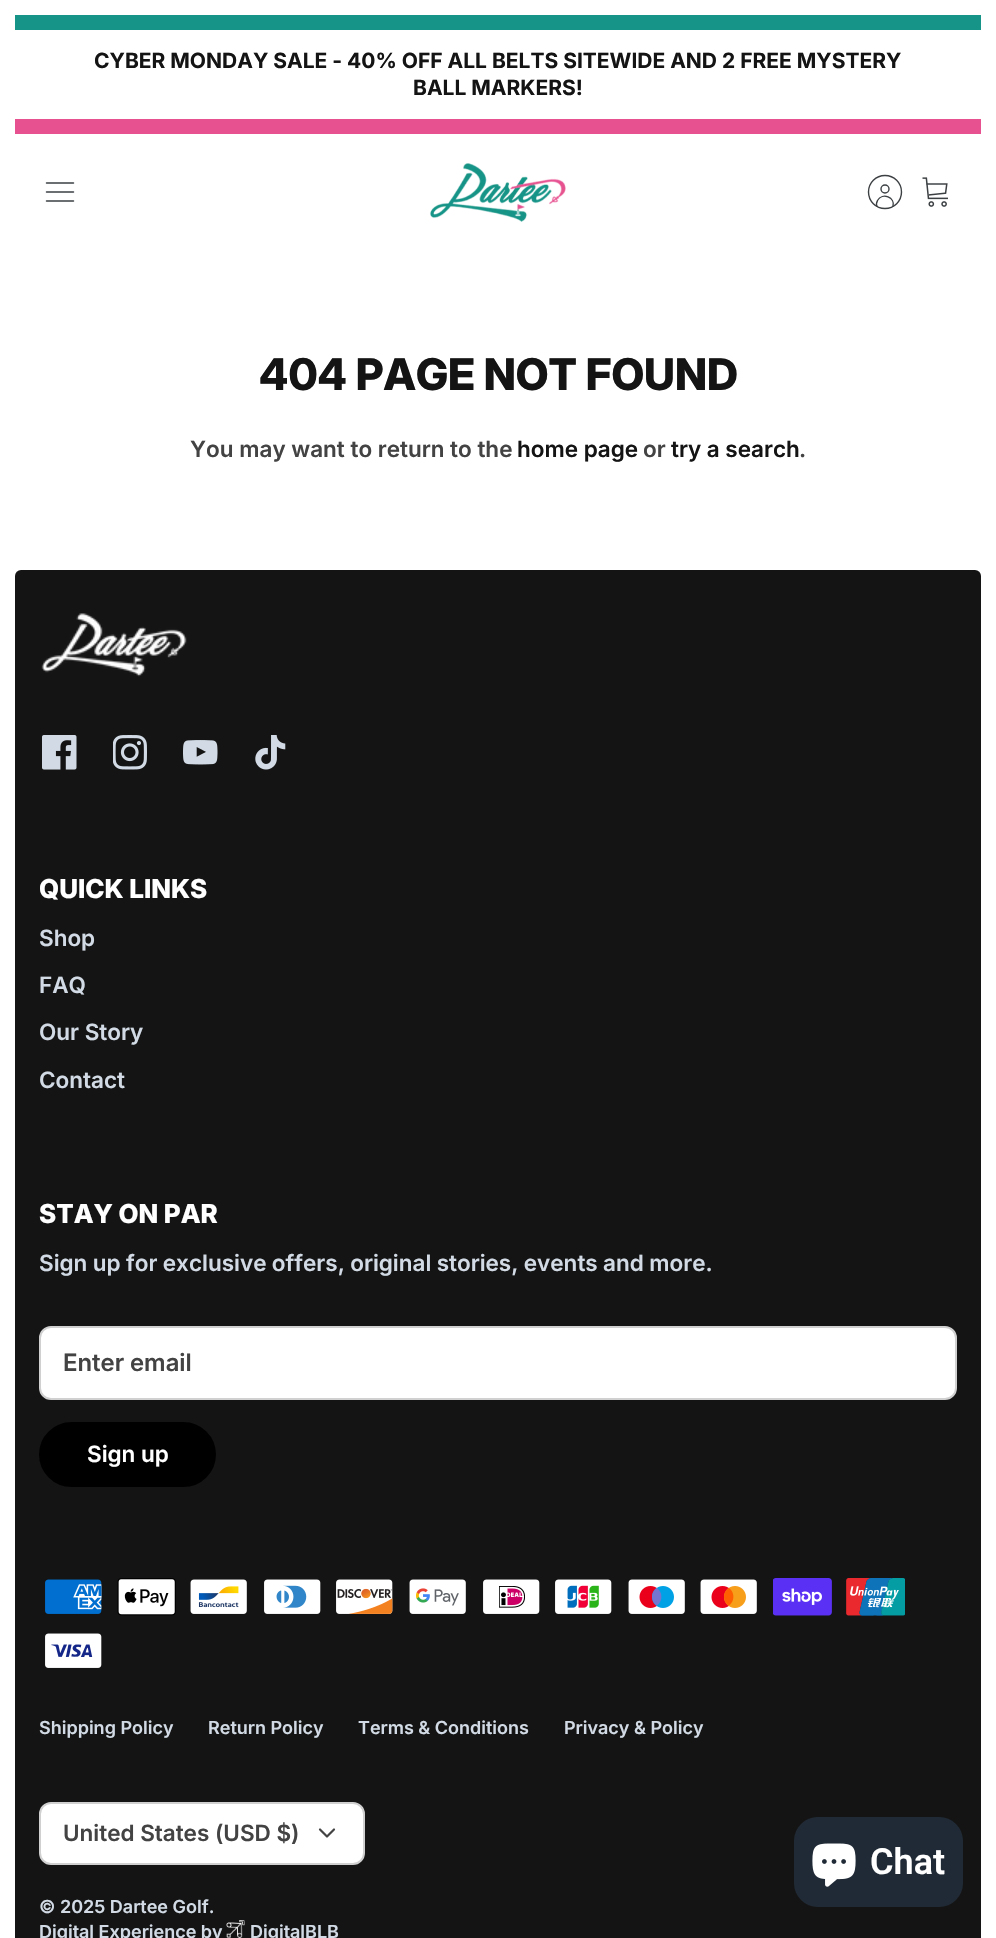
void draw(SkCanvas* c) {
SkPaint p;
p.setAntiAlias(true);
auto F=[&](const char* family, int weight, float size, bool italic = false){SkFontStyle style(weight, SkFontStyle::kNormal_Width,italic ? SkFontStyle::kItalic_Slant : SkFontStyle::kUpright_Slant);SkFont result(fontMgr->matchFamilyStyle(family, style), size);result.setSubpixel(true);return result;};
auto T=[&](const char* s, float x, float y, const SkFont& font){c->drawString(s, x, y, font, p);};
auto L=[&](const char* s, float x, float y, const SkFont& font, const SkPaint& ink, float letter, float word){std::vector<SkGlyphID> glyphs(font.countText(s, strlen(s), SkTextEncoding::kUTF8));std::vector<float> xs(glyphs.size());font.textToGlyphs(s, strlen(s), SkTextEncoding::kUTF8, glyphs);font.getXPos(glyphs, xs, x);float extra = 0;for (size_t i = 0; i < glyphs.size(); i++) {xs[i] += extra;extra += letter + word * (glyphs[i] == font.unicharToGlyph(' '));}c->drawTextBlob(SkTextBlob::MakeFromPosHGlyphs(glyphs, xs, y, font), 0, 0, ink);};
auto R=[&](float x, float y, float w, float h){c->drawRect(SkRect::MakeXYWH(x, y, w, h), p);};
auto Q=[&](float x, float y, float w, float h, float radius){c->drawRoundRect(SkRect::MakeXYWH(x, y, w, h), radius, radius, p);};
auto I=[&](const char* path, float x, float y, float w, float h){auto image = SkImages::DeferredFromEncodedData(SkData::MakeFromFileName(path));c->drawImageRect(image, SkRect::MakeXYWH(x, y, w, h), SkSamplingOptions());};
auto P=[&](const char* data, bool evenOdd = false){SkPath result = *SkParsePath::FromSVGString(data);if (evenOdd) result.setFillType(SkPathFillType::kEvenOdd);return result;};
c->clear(0xffffffff);
p.setColor(0xff159487);
R(15,15,966,15);
p.setColor(0xffe85190);
R(15,119,966,15);
auto f1 = F("Inter",700,21);
p.setColor(0xff141414);
T("CYBER MONDAY SALE - 40% OFF ALL BELTS SITEWIDE AND 2 FREE MYSTERY",94,68,f1);
T("BALL MARKERS!",413,95,f1);
p.setStroke(true);
p.setStrokeWidth(1.5);
p.setStrokeCap(SkPaint::kRound_Cap);
p.setStrokeJoin(SkPaint::kRound_Join);
p.setColor(0xff3c4043);
c->drawPath(P("M46.5 192h27m-27-9h27m-27 18h27"),p);
I("1.png",430,163,136,59);
p.setStrokeWidth(1.4);
p.setStrokeCap(SkPaint::kButt_Cap);
p.setStrokeJoin(SkPaint::kMiter_Join);
c->drawPath(P("M893 206.5c2.5-9-10.5-14.5-15.5-6c-1 2-1.5 4-.5 6"),p);
c->drawCircle(885,189,4,p);
c->drawCircle(885,192,16.5,p);
I("2.png",922,177,26,30);
auto f2 = F("Inter",800,43.5);
p.setStroke(false);
p.setColor(0xff141414);
T("404 PAGE NOT FOUND",259,390,f2);
auto f3 = F("Inter",600,22.5);
p.setColor(0xff434343);
T("You may want to return to the",190,457,f3);
p.setColor(0xff141414);
T("home page",517,457,f3);
p.setColor(0xff434343);
T("or",643,457,f3);
p.setColor(0xff141414);
T("try a search",671,457,f3);
p.setColor(0xff434343);
T(".",799,457,f3);
p.setColor(0xff141414);
Q(15,570,966,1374,6);
I("3.png",41,613,146,64);
I("4.png",42,735,35,35);
I("5.png",113,735,34,35);
I("6.png",183,740,35,25);
I("7.png",255,735,31,35);
auto f4 = F("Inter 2",800,26);
p.setColor(0xffffffff);
T("QUICK LINKS",39,898,f4);
p.setColor(0xffd2dbe5);
T("Shop",39,946,f3);
T("FAQ",39,993,f3);
T("Our Story",39,1040,f3);
T("Contact",39,1088,f3);
p.setColor(0xffffffff);
T("STAY ON PAR",39,1223,f4);
p.setColor(0xffd2dbe5);
L("Sign up for exclusive offers, original stories, events and more.",39,1271,f3,p,0,-.25);
p.setColor(0xffffffff);
c->drawRoundRect(SkRect::MakeXYWH(40,1327,916,72),11,11,p);
p.setStroke(true);
p.setStrokeWidth(2);
p.setColor(0xffd0d0d0);
c->drawRoundRect(SkRect::MakeXYWH(40,1327,916,72),11,11,p);
auto f5 = F("Inter 2",600,24);
p.setStroke(false);
p.setColor(0xff434343);
T("Enter email",63,1371,f5);
p.setColor(0xff000000);
c->drawRoundRect(SkRect::MakeXYWH(40,1423,175,63),31.5,31.5,p);
p.setStroke(true);
c->drawRoundRect(SkRect::MakeXYWH(40,1423,175,63),31.5,31.5,p);
p.setStroke(false);
p.setColor(0xffffffff);
T("Sign up",87,1462,f3);
I("8.png",45,1579,57,35);
I("9.png",117,1578,59,38);
I("10.png",190,1579,57,35);
I("11.png",264,1579,57,35);
I("12.png",336,1579,57,35);
I("13.png",409,1579,57,35);
I("14.png",483,1579,57,35);
I("15.png",555,1579,57,35);
I("16.png",628,1579,57,35);
I("17.png",700,1579,57,35);
I("18.png",773,1578,59,38);
I("19.png",846,1578,59,38);
I("20.png",45,1633,57,35);
auto f6 = F("Inter",600,18);
p.setColor(0xffd2dbe5);
T("Shipping Policy",39,1734,f6);
T("Return Policy",208,1734,f6);
T("Terms & Conditions",358,1734,f6);
T("Privacy & Policy",564,1734,f6);
p.setColor(0xffffffff);
c->drawRoundRect(SkRect::MakeXYWH(40,1803,324,61),11,11,p);
p.setStroke(true);
p.setColor(0xffd0d0d0);
c->drawRoundRect(SkRect::MakeXYWH(40,1803,324,61),11,11,p);
p.setStroke(false);
p.setColor(0xff434343);
T("United States (USD $)",63,1841,f3);
p.setStroke(true);
p.setStrokeWidth(2.2);
p.setStrokeCap(SkPaint::kRound_Cap);
p.setStrokeJoin(SkPaint::kRound_Join);
c->drawPath(P("M320 1829.5l7 7l7-7"),p);
p.setStroke(false);
p.setColor(0xffd2dbe5);
T("© 2025 Dartee Golf.",39,1913,f6);
T("Digital Experience by",39,1938,f6);
I("21.png",226,1920,19,18);
T("DigitalBLB",250,1938,f6);
p.setColor(0xff202a36);
Q(794,1817,169,90,24);
I("22.png",812,1843,44,44);
auto f7 = F("Roboto",600,36);
p.setColor(0xffffffff);
T("Chat",870,1874,f7);
}
